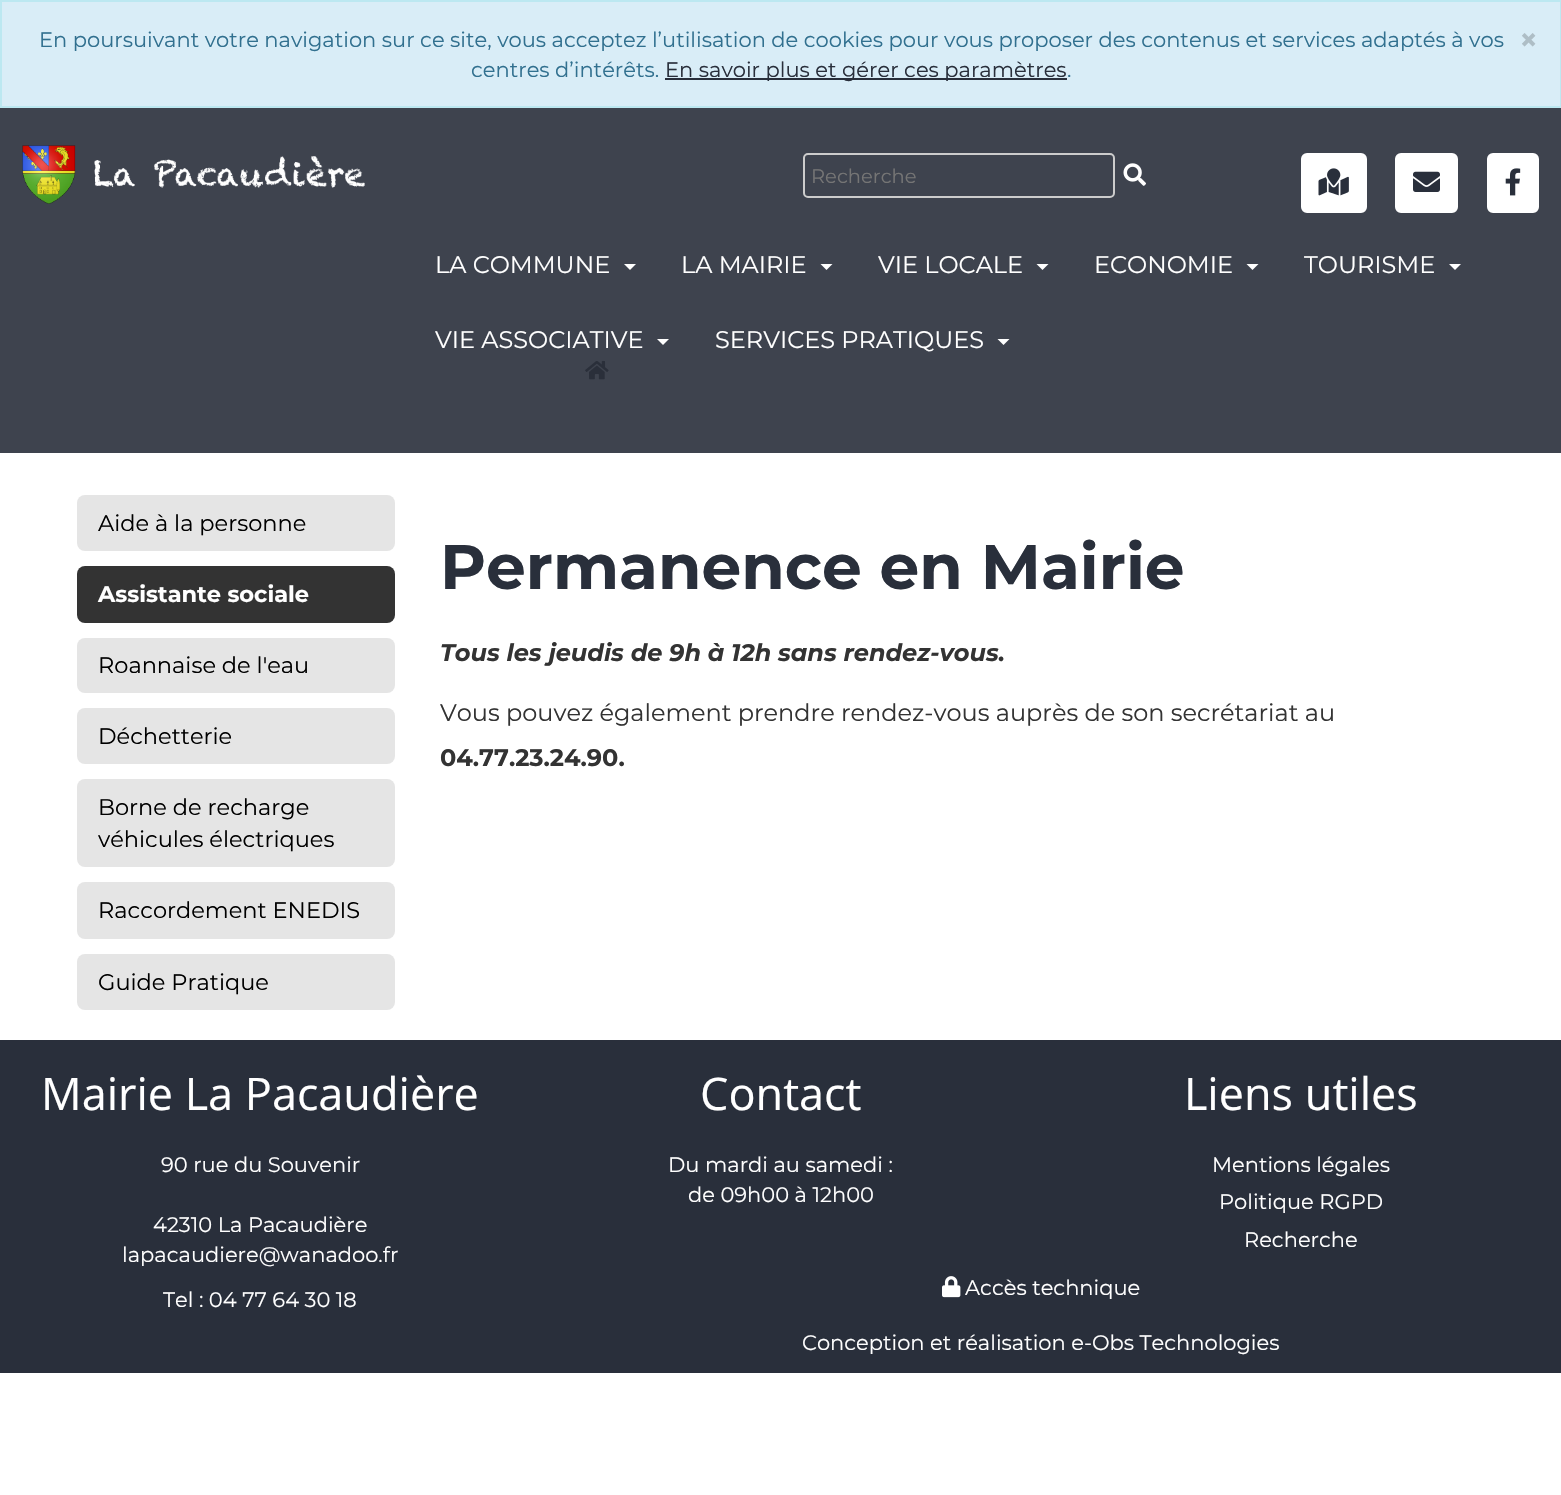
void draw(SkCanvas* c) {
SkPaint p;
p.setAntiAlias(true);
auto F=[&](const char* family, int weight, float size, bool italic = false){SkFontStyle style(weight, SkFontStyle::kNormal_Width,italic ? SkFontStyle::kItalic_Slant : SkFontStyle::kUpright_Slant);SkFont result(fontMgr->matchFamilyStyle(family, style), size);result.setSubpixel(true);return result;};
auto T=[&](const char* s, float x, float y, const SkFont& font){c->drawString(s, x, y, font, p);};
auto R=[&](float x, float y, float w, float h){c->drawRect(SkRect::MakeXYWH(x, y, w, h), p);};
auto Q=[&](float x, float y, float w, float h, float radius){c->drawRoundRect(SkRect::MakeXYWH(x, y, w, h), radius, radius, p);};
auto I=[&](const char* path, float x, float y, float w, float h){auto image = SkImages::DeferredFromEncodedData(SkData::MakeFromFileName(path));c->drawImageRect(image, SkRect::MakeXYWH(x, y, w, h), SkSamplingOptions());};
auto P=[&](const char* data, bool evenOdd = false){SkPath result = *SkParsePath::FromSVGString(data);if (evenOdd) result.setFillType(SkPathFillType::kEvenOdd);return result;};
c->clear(0xffffffff);
p.setColor(0xffd9edf7);
c->drawRect(SkRect::MakeXYWH(1,1,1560,106),p);
p.setStroke(true);
p.setStrokeWidth(2);
p.setColor(0xffbce8f1);
c->drawRect(SkRect::MakeXYWH(1,1,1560,106),p);
auto f1 = F("Montserrat",400,21);
p.setStroke(false);
p.setColor(0xff31708f);
T("En poursuivant votre navigation sur ce site, vous acceptez l’utilisation de cookies pour vous proposer des contenus et services adaptés à vos",39,47,f1);
T("centres d’intérêts.",471,77,f1);
p.setColor(0xff292f3b);
R(665,78,402,2);
T("En savoir plus et gérer ces paramètres",665,77,f1);
p.setColor(0xff31708f);
T(".",1067,77,f1);
auto f2 = F("Montserrat",700,32);
p.setColor(0xffaebec6);
T("×",1519,51,f2);
I("6.png",585,360,24,20);
p.setColor(0xe6292f3b);
R(0,108,1561,345);
I("1.png",22,145,343,59);
p.setStroke(true);
p.setColor(0xffcccccc);
c->drawRoundRect(SkRect::MakeXYWH(804,154,310,43),4,4,p);
auto f3 = F("Montserrat",400,19.5);
p.setStroke(false);
p.setColor(0xff757575);
T("Recherche",811,183,f3);
I("2.png",1123,163,23,23);
p.setColor(0xffffffff);
c->drawRoundRect(SkRect::MakeXYWH(1302.5,154.5,63,57),4.5,4.5,p);
p.setStroke(true);
p.setStrokeWidth(3);
c->drawRoundRect(SkRect::MakeXYWH(1302.5,154.5,63,57),4.5,4.5,p);
I("3.png",1318,168,31,28);
p.setStroke(false);
c->drawRoundRect(SkRect::MakeXYWH(1396.5,154.5,60,57),4.5,4.5,p);
p.setStroke(true);
c->drawRoundRect(SkRect::MakeXYWH(1396.5,154.5,60,57),4.5,4.5,p);
I("4.png",1413,171,27,21);
p.setStroke(false);
c->drawRoundRect(SkRect::MakeXYWH(1488.5,154.5,49,57),4.5,4.5,p);
p.setStroke(true);
c->drawRoundRect(SkRect::MakeXYWH(1488.5,154.5,49,57),4.5,4.5,p);
I("5.png",1505,168,16,28);
auto f4 = F("Montserrat",400,24);
p.setStroke(false);
T("LA COMMUNE",435,273,f4);
c->drawPath(P("M624 264h12l-6 6z"),p);
T("LA MAIRIE",681,273,f4);
c->drawPath(P("M820.5 264h12l-6 6z"),p);
T("VIE LOCALE",878,273,f4);
c->drawPath(P("M1036.5 264h12l-6 6z"),p);
T("ECONOMIE",1094,273,f4);
c->drawPath(P("M1246.5 264h12l-6 6z"),p);
T("TOURISME",1304,273,f4);
c->drawPath(P("M1449 264h12l-6 6z"),p);
T("VIE ASSOCIATIVE",435,348,f4);
c->drawPath(P("M657 339h12l-6 6z"),p);
T("SERVICES PRATIQUES",715,348,f4);
c->drawPath(P("M997.5 339h12l-6 6z"),p);
p.setColor(0xffe5e5e5);
Q(77,495,318,56,8);
auto f5 = F("Montserrat",400,22.5);
p.setColor(0xff000000);
T("Aide à la personne",98,531,f5);
p.setColor(0xff333333);
Q(77,566,318,57,8);
auto f6 = F("Montserrat",700,22.5);
p.setColor(0xffffffff);
T("Assistante sociale",98,602,f6);
p.setColor(0xffe5e5e5);
Q(77,638,318,55,8);
p.setColor(0xff000000);
T("Roannaise de l'eau",98,673,f5);
p.setColor(0xffe5e5e5);
Q(77,708,318,56,8);
p.setColor(0xff000000);
T("Déchetterie",98,744,f5);
p.setColor(0xffe5e5e5);
Q(77,779,318,88,8);
p.setColor(0xff000000);
T("Borne de recharge",98,815,f5);
T("véhicules électriques",98,847,f5);
p.setColor(0xffe5e5e5);
Q(77,882,318,57,8);
p.setColor(0xff000000);
T("Raccordement ENEDIS",98,918,f5);
p.setColor(0xffe5e5e5);
Q(77,954,318,56,8);
p.setColor(0xff000000);
T("Guide Pratique",98,990,f5);
auto f7 = F("Montserrat",700,63);
p.setColor(0xff292f3b);
T("Permanence en Mairie",440,589,f7);
auto f8 = F("Montserrat",700,24,true);
p.setColor(0xff333333);
T("Tous les jeudis de 9h à 12h sans rendez-vous.",440,661,f8);
T("Vous pouvez également prendre rendez-vous auprès de son secrétariat au",440,721,f4);
auto f9 = F("Montserrat",700,24);
T("04.77.23.24.90.",440,766,f9);
p.setColor(0xff292f3b);
R(0,1040,1561,333);
auto f10 = F("Open Sans",400,45);
p.setColor(0xffffffff);
T("Mairie La Pacaudière",41,1110,f10);
T("90 rue du Souvenir",161,1172,f1);
T("42310 La Pacaudière",153,1232,f1);
T("lapacaudiere@wanadoo.fr",122,1262,f1);
T("Tel : 04 77 64 30 18",163,1307,f1);
T("Contact",700,1110,f10);
T("Du mardi au samedi :",668,1172,f1);
T("de 09h00 à 12h00",688,1202,f1);
T("Liens utiles",1184,1110,f10);
T("Mentions légales",1212,1172,f1);
T("Politique RGPD",1219,1209,f1);
T("Recherche",1244,1247,f1);
I("7.png",942,1276,19,22);
T("Accès technique",965,1295,f1);
T("Conception et réalisation e-Obs Technologies",802,1350,f1);
}
